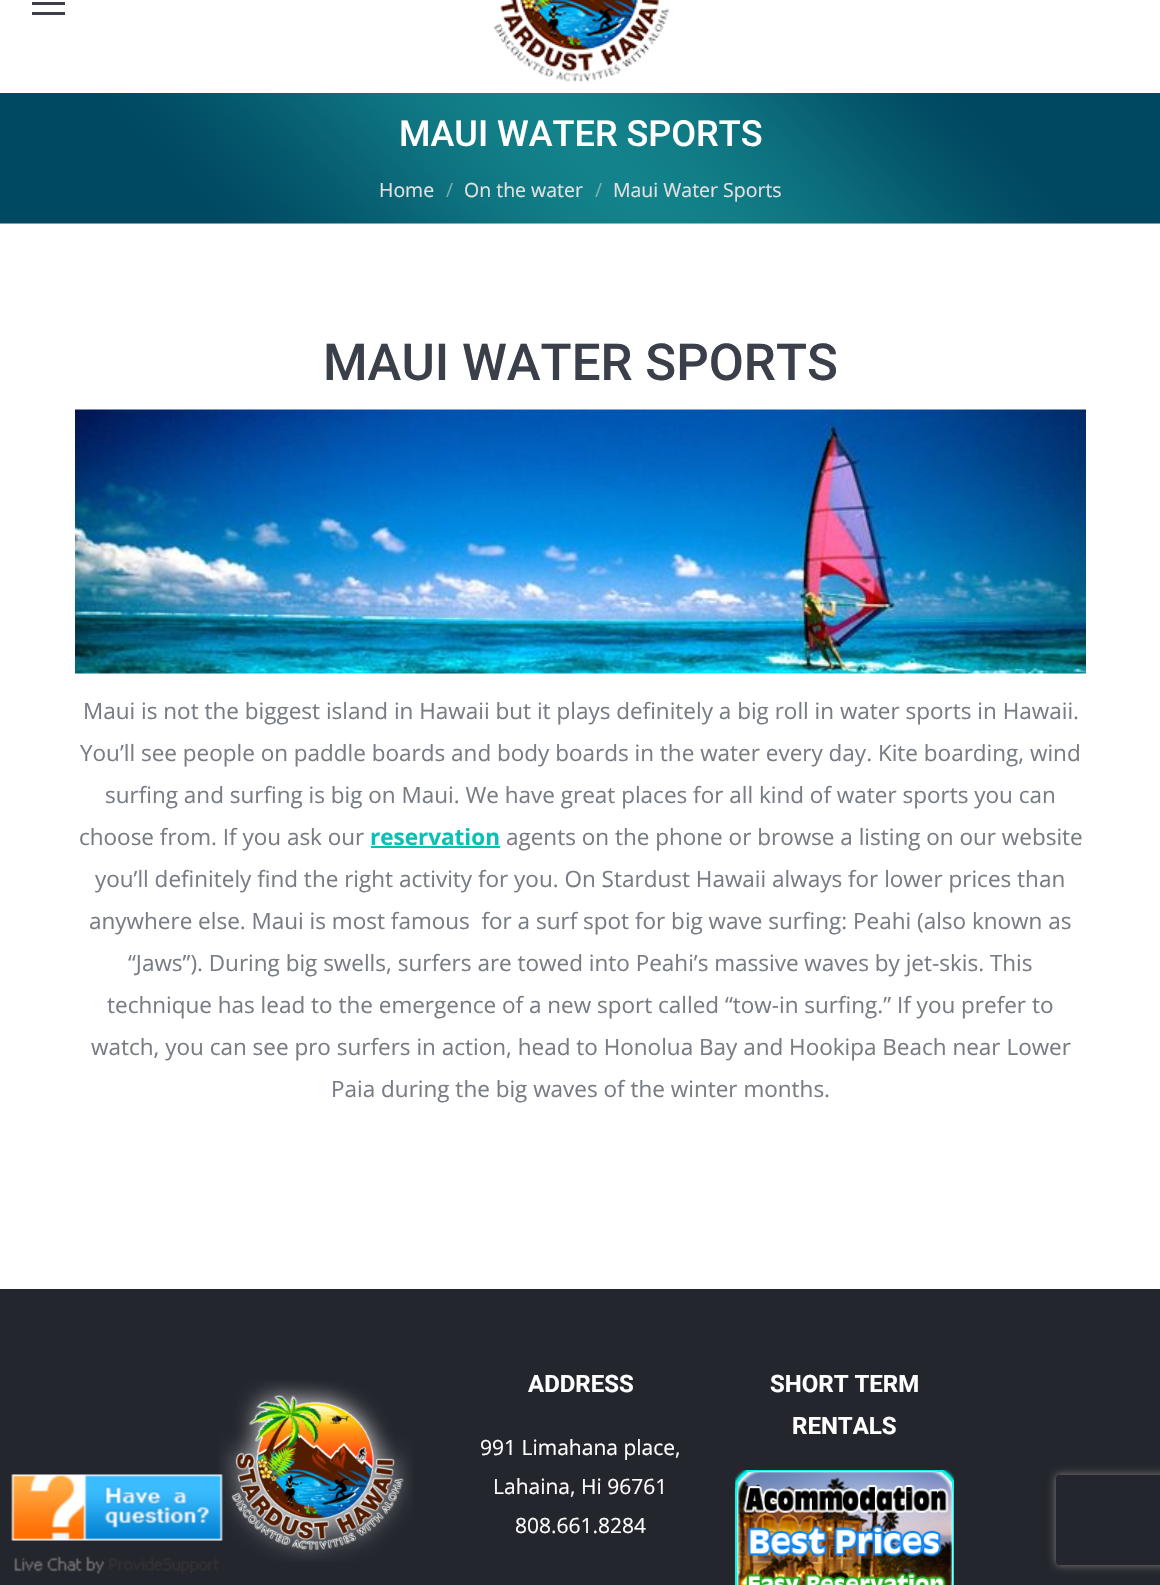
void draw(SkCanvas* c) {
SkPaint p;
p.setAntiAlias(true);
auto F=[&](const char* family, int weight, float size, bool italic = false){SkFontStyle style(weight, SkFontStyle::kNormal_Width,italic ? SkFontStyle::kItalic_Slant : SkFontStyle::kUpright_Slant);SkFont result(fontMgr->matchFamilyStyle(family, style), size);result.setSubpixel(true);return result;};
auto T=[&](const char* s, float x, float y, const SkFont& font){c->drawString(s, x, y, font, p);};
auto R=[&](float x, float y, float w, float h){c->drawRect(SkRect::MakeXYWH(x, y, w, h), p);};
auto I=[&](const char* path, float x, float y, float w, float h){auto image = SkImages::DeferredFromEncodedData(SkData::MakeFromFileName(path));c->drawImageRect(image, SkRect::MakeXYWH(x, y, w, h), SkSamplingOptions());};
auto P=[&](const char* data, bool evenOdd = false){SkPath result = *SkParsePath::FromSVGString(data);if (evenOdd) result.setFillType(SkPathFillType::kEvenOdd);return result;};
c->clear(0xffffffff);
p.setColor(0xff3b3f4a);
R(32,2,33,3);
R(32,12,33,3);
I("1.png",493,0,177,82);
p.setColor(0xfff7f7f7);
R(0,223,1160,1);
I("2.png",0,93,1160,131);
auto f1 = F("Roboto",500,36);
p.setColor(0xffffffff);
T("MAUI WATER SPORTS",399,146,f1);
auto f2 = F("Open Sans",400,19.5);
p.setColor(0xffe2e2e2);
T("Home",379,197,f2);
p.setColor(0xff78a9b0);
T("/",446,197,f2);
p.setColor(0xffe2e2e2);
T("On the water",464,197,f2);
p.setColor(0xff7bb2b6);
T("/",595,197,f2);
p.setColor(0xffe2e2e2);
T("Maui Water Sports",613,197,f2);
auto f3 = F("Roboto",500,51);
p.setColor(0xff3b3f4a);
T("MAUI WATER SPORTS",323,380,f3);
I("3.png",75,409,1011,265);
auto f4 = F("Open Sans",400,22.5);
p.setColor(0xff787d85);
T("Maui is not the biggest island in Hawaii but it plays definitely a big roll in water sports in Hawaii.",83,719,f4);
T("You’ll see people on paddle boards and body boards in the water every day. Kite boarding, wind",80,761,f4);
T("surfing and surfing is big on Maui. We have great places for all kind of water sports you can",105,803,f4);
T("choose from. If you ask our",79,845,f4);
auto f5 = F("Open Sans",700,22.5);
p.setColor(0xff07c1b6);
T("reservation",370,845,f5);
R(371,846,129,2);
p.setColor(0xff787d85);
T("agents on the phone or browse a listing on our website",506,845,f4);
T("you’ll definitely find the right activity for you. On Stardust Hawaii always for lower prices than",95,887,f4);
T("anywhere else. Maui is most famous  for a surf spot for big wave surfing: Peahi (also known as",89,929,f4);
T("“Jaws”). During big swells, surfers are towed into Peahi’s massive waves by jet-skis. This",128,971,f4);
T("technique has lead to the emergence of a new sport called “tow-in surfing.” If you prefer to",107,1013,f4);
T("watch, you can see pro surfers in action, head to Honolua Bay and Hookipa Beach near Lower",91,1055,f4);
T("Paia during the big waves of the winter months.",331,1097,f4);
p.setColor(0xff23262d);
R(0,1289,1160,296);
I("4.png",219,1380,194,182);
auto f6 = F("Roboto",700,24);
p.setColor(0xffffffff);
T("ADDRESS",528,1392,f6);
auto f7 = F("Open Sans",400,21);
T("991 Limahana place,",480,1455,f7);
T("Lahaina, Hi 96761",493,1494,f7);
T("808.661.8284",515,1533,f7);
T("SHORT TERM",770,1392,f6);
T("RENTALS",792,1434,f6);
I("5.png",735,1470,219,115);
c->save();
c->clipPath(P("M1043 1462h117v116h-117zm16 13h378c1.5 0 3 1.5 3 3v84c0 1.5-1.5 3-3 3h-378c-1.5 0-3-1.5-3-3v-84c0-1.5 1.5-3 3-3z",true),true);
p.setColor(0xff808080);
p.setMaskFilter(SkMaskFilter::MakeBlur(kNormal_SkBlurStyle, 4));
c->drawRoundRect(SkRect::MakeXYWH(1056,1475,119,90),3,3,p);
p.setMaskFilter(nullptr);
c->restore();
I("6.png",11,1474,212,67);
I("7.png",14,1556,205,19);
}
